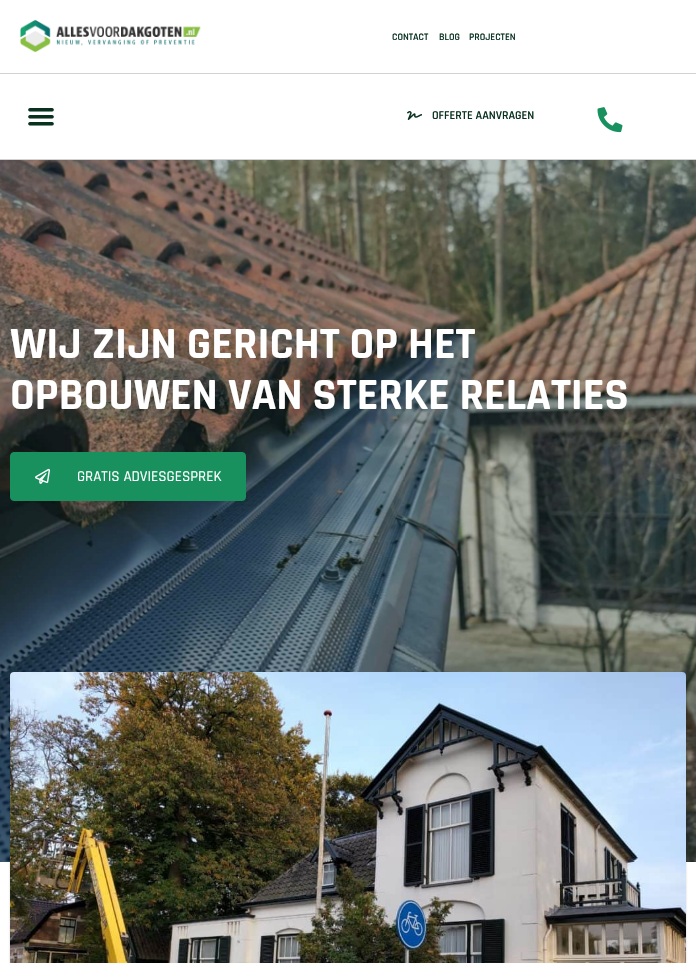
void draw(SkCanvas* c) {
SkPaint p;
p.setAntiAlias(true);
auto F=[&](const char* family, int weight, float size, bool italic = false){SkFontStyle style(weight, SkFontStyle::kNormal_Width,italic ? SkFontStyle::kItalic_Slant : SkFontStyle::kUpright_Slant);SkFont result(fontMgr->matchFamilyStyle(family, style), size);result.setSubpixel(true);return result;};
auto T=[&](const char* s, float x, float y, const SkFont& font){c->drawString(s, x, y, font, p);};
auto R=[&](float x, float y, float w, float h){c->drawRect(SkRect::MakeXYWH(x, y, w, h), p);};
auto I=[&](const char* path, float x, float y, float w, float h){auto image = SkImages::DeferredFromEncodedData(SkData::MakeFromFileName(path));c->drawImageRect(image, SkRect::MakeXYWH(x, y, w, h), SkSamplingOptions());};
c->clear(0xffffffff);
I("1.png",20,20,181,32);
auto f1 = F("Rajdhani",600,10);
p.setColor(0xff083120);
T("CONTACT",392,40,f1);
T("BLOG",439,40,f1);
T("PROJECTEN",469,40,f1);
p.setColor(0xffd2d2d2);
R(0,73,696,1);
R(0,159,696,1);
I("2.png",28,108,26,18);
I("3.png",407,111,15,9);
auto f2 = F("Rajdhani",600,12);
p.setColor(0xff083120);
T("OFFERTE AANVRAGEN",432,119,f2);
I("4.png",597,107,26,26);
I("5.png",0,160,696,702);
auto f3 = F("Rajdhani",700,45);
p.setColor(0xffffffff);
T("WIJ ZIJN GERICHT OP HET",10,358,f3);
T("OPBOUWEN VAN STERKE RELATIES",10,409,f3);
p.setColor(0xff18915f);
c->drawRoundRect(SkRect::MakeXYWH(10.5,452.5,235,48),3.5,3.5,p);
p.setStroke(true);
p.setStrokeWidth(1);
c->drawRoundRect(SkRect::MakeXYWH(10.5,452.5,235,48),3.5,3.5,p);
I("6.png",35,468,15,16);
auto f4 = F("Rajdhani",500,15);
p.setStroke(false);
p.setColor(0xffffffff);
T("GRATIS ADVIESGESPREK",77,481,f4);
p.setColor(0x33000000);
p.setMaskFilter(SkMaskFilter::MakeBlur(kNormal_SkBlurStyle, 1));
c->drawRoundRect(SkRect::MakeXYWH(10,674,676,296),4,4,p);
p.setMaskFilter(nullptr);
I("7.png",10,672,676,291);
}
